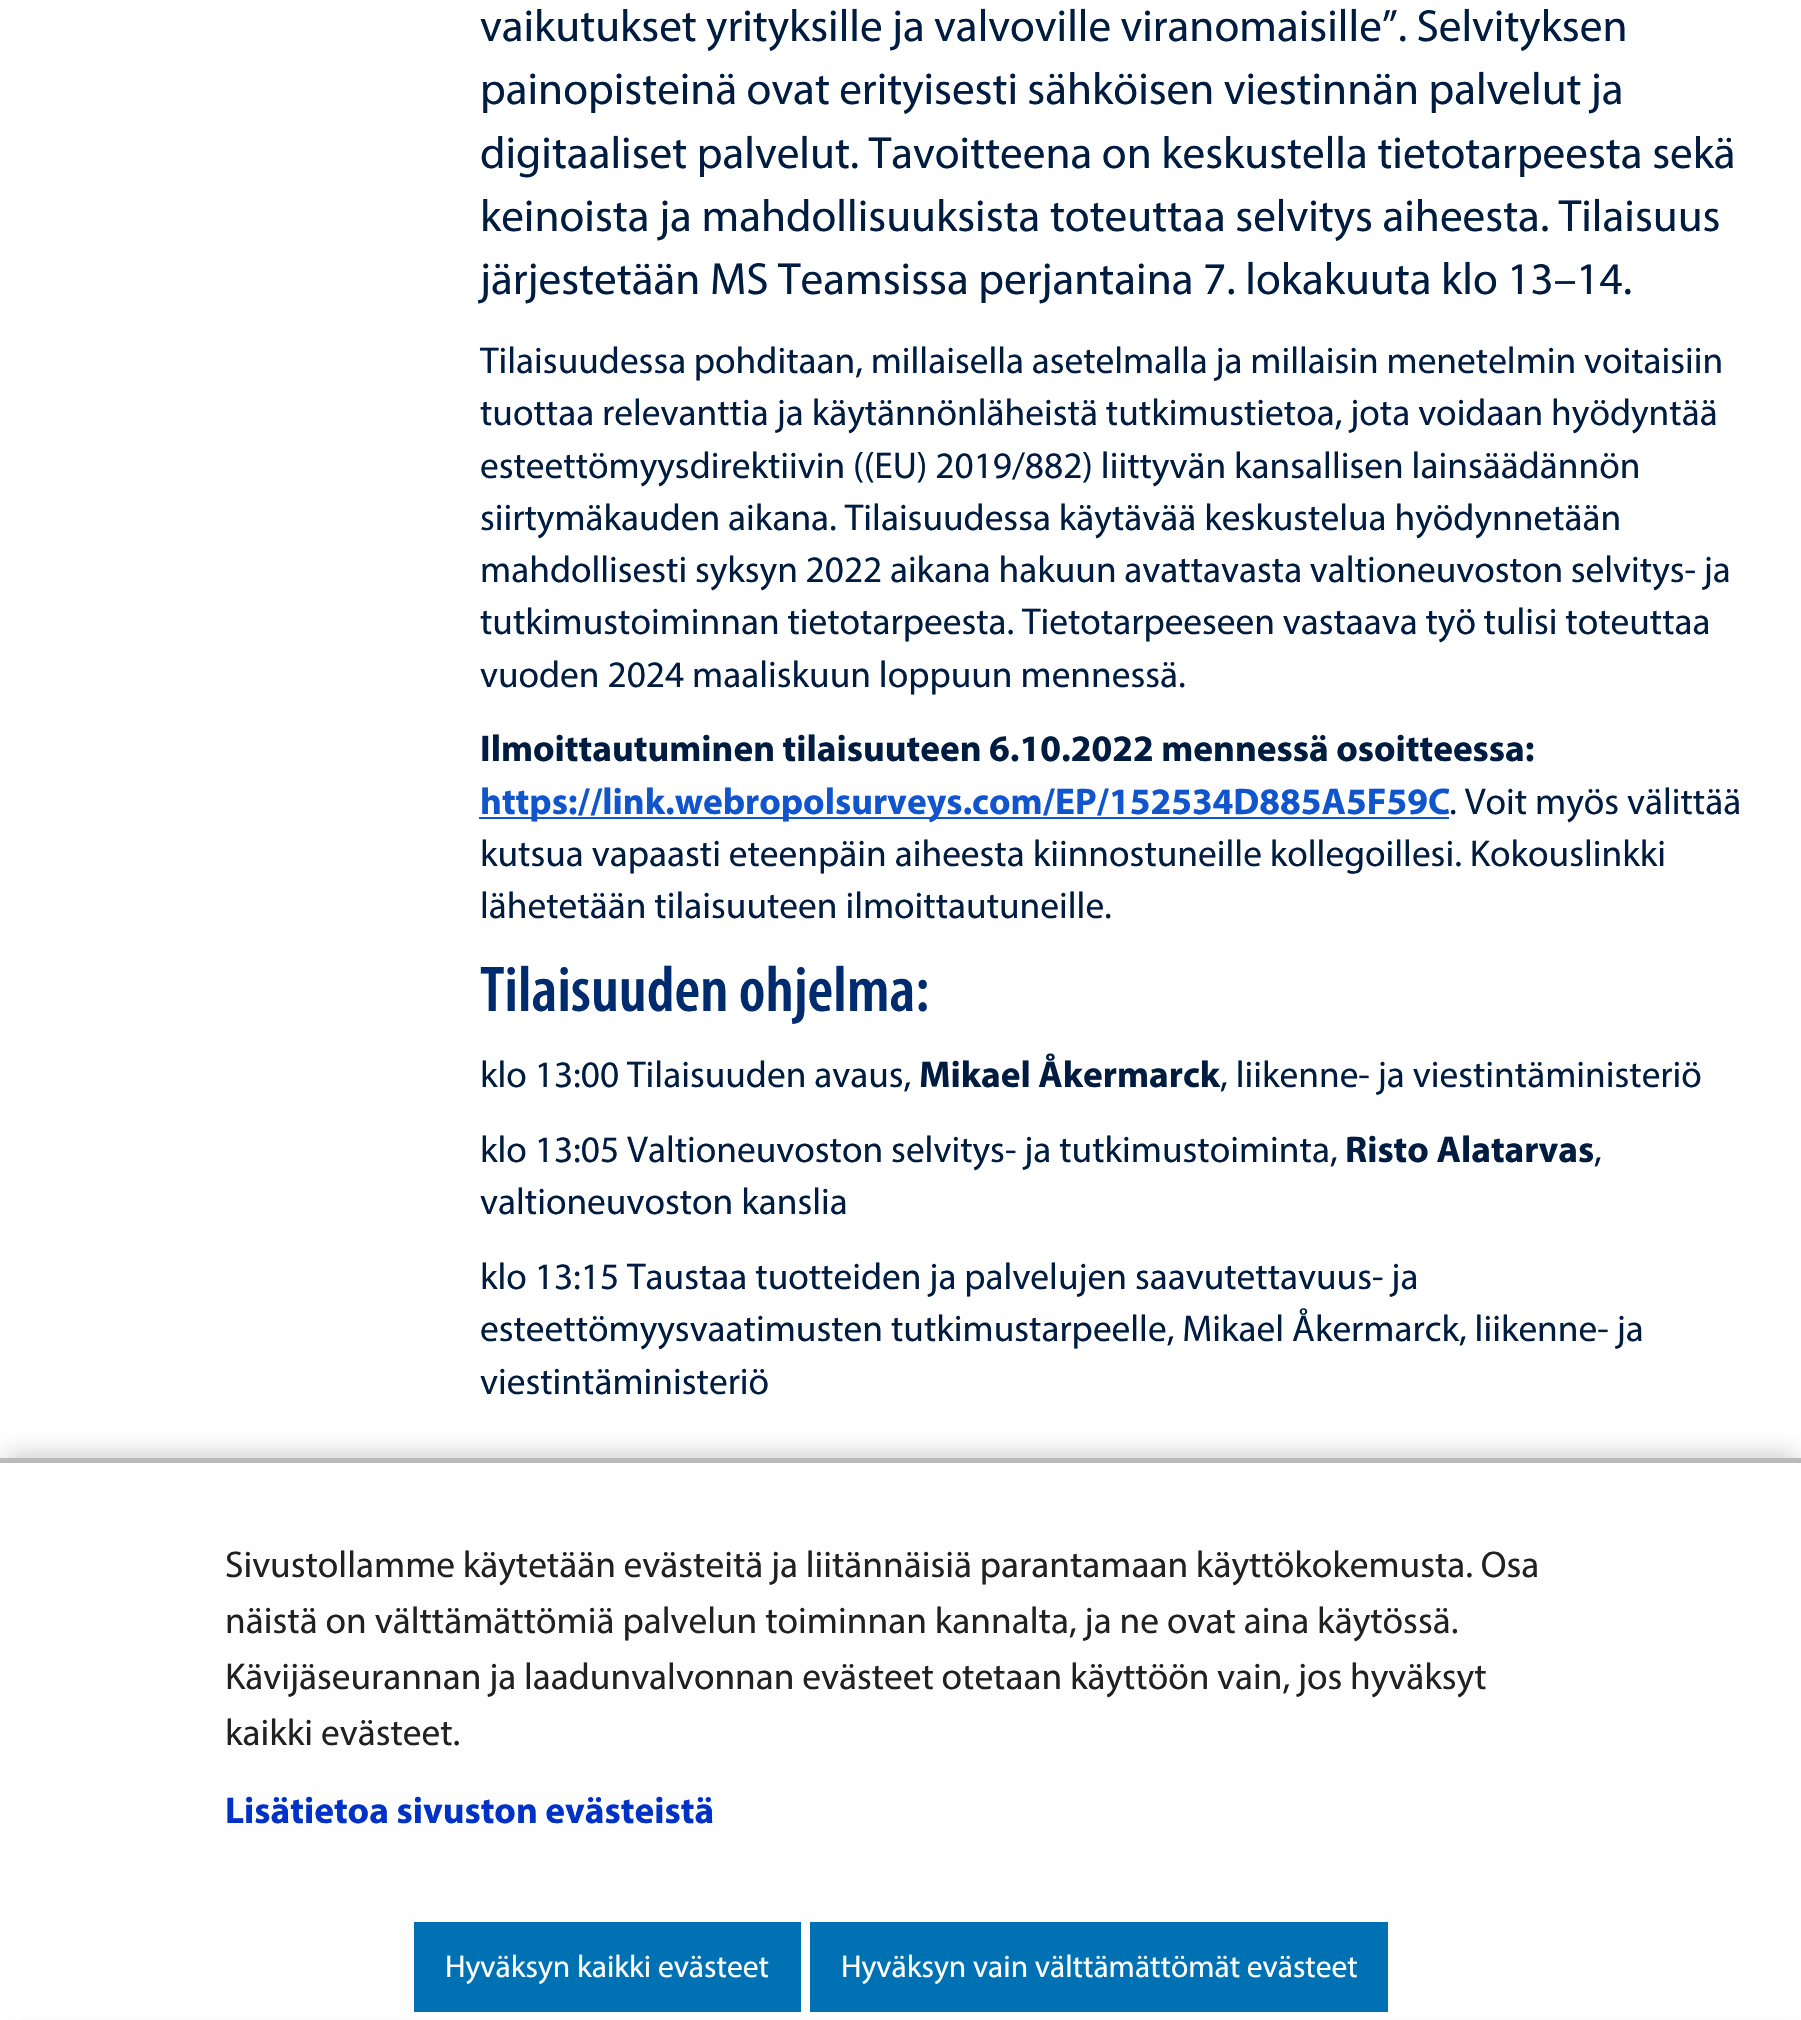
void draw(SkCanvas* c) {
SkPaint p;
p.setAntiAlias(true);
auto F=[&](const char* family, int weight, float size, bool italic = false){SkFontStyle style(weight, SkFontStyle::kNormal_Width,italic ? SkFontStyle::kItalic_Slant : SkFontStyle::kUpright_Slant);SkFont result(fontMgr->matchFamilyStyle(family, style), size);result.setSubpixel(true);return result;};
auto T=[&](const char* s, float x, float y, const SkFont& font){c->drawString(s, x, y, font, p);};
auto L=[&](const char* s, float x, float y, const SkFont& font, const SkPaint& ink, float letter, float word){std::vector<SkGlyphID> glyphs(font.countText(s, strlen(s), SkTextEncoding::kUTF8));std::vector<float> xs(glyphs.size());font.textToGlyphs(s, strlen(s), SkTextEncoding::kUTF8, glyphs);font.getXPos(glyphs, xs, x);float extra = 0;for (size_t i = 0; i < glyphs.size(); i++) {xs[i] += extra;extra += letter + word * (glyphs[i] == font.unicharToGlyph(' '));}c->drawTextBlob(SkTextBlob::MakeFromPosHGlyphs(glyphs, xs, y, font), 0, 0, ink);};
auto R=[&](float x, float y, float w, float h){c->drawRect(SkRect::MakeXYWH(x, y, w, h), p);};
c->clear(0xffffffff);
auto f1 = F("Myriad",400,45.2);
p.setColor(0xff001c41);
L("vaikutukset yrityksille ja valvoville viranomaisille”. Selvityksen",480,41,f1,p,0,-.25);
L("painopisteinä ovat erityisesti sähköisen viestinnän palvelut ja",480,104,f1,p,0,-.25);
T("digitaaliset palvelut. Tavoitteena on keskustella tietotarpeesta sekä",480,168,f1);
T("keinoista ja mahdollisuuksista toteuttaa selvitys aiheesta. Tilaisuus",480,231,f1);
T("järjestetään MS Teamsissa perjantaina 7. lokakuuta klo 13–14.",480,294,f1);
auto f2 = F("Myriad",400,37.35);
L("Tilaisuudessa pohditaan, millaisella asetelmalla ja millaisin menetelmin voitaisiin",480,373,f2,p,0,-.25);
T("tuottaa relevanttia ja käytännönläheistä tutkimustietoa, jota voidaan hyödyntää",480,425,f2);
T("esteettömyysdirektiivin ((EU) 2019/882) liittyvän kansallisen lainsäädännön",480,478,f2);
T("siirtymäkauden aikana. Tilaisuudessa käytävää keskustelua hyödynnetään",480,530,f2);
L("mahdollisesti syksyn 2022 aikana hakuun avattavasta valtioneuvoston selvitys- ja",480,582,f2,p,0,-.25);
L("tutkimustoiminnan tietotarpeesta. Tietotarpeeseen vastaava työ tulisi toteuttaa",480,634,f2,p,0,-.25);
T("vuoden 2024 maaliskuun loppuun mennessä.",480,687,f2);
auto f3 = F("Myriad",700,37.35);
T("Ilmoittautuminen tilaisuuteen 6.10.2022 mennessä osoitteessa:",480,761,f3);
p.setColor(0xff1155cc);
R(479,817,970,2);
T("https://link.webropolsurveys.com/EP/152534D885A5F59C",480,814,f3);
p.setColor(0xff001c41);
T(". Voit myös välittää",1449,814,f2);
T("kutsua vapaasti eteenpäin aiheesta kiinnostuneille kollegoillesi. Kokouslinkki",480,866,f2);
T("lähetetään tilaisuuteen ilmoittautuneille.",480,918,f2);
auto f4 = F("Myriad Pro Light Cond",600,65.25);
p.setColor(0xff002b6e);
T("Tilaisuuden ohjelma:",480,1011,f4);
p.setColor(0xff001c41);
T("klo 13:00 Tilaisuuden avaus,",480,1087,f2);
T("Mikael Åkermarck",919,1087,f3);
T(", liikenne- ja viestintäministeriö",1220,1087,f2);
T("klo 13:05 Valtioneuvoston selvitys- ja tutkimustoiminta,",480,1162,f2);
T("Risto Alatarvas",1345,1162,f3);
T(",",1594,1162,f2);
T("valtioneuvoston kanslia",480,1214,f2);
T("klo 13:15 Taustaa tuotteiden ja palvelujen saavutettavuus- ja",480,1289,f2);
T("esteettömyysvaatimusten tutkimustarpeelle, Mikael Åkermarck, liikenne- ja",480,1341,f2);
T("viestintäministeriö",480,1394,f2);
p.setColor(0x33000000);
p.setMaskFilter(SkMaskFilter::MakeBlur(kNormal_SkBlurStyle, 11));
c->drawRect(SkRect::MakeXYWH(7,1454,1789,549),p);
p.setMaskFilter(nullptr);
p.setColor(0xfffefefe);
R(0,1463,1801,556);
p.setColor(0xffbababa);
R(0,1458,1801,5);
p.setColor(0xff212121);
L("Sivustollamme käytetään evästeitä ja liitännäisiä parantamaan käyttökokemusta. Osa",225,1577,f2,p,0,-.25);
T("näistä on välttämättömiä palvelun toiminnan kannalta, ja ne ovat aina käytössä.",225,1633,f2);
L("Kävijäseurannan ja laadunvalvonnan evästeet otetaan käyttöön vain, jos hyväksyt",225,1689,f2,p,0,-.25);
T("kaikki evästeet.",225,1745,f2);
p.setColor(0xff0032c8);
T("Lisätietoa sivuston evästeistä",225,1823,f3);
p.setColor(0xff0072b3);
R(414,1922,387,90);
auto f5 = F("Myriad",400,31.5);
p.setColor(0xffffffff);
T("Hyväksyn kaikki evästeet",445,1977,f5);
p.setColor(0xff0072b3);
R(810,1922,578,90);
p.setColor(0xffffffff);
T("Hyväksyn vain välttämättömät evästeet",841,1977,f5);
}
